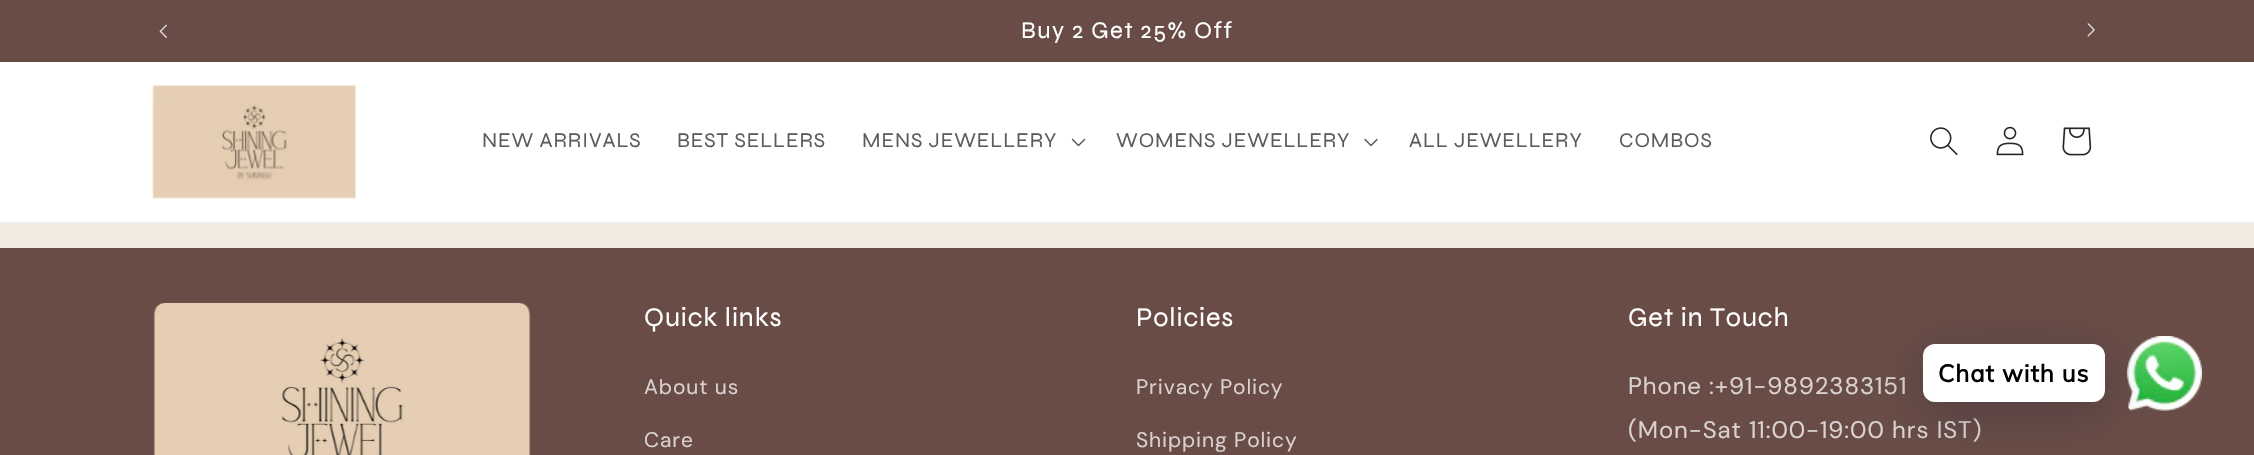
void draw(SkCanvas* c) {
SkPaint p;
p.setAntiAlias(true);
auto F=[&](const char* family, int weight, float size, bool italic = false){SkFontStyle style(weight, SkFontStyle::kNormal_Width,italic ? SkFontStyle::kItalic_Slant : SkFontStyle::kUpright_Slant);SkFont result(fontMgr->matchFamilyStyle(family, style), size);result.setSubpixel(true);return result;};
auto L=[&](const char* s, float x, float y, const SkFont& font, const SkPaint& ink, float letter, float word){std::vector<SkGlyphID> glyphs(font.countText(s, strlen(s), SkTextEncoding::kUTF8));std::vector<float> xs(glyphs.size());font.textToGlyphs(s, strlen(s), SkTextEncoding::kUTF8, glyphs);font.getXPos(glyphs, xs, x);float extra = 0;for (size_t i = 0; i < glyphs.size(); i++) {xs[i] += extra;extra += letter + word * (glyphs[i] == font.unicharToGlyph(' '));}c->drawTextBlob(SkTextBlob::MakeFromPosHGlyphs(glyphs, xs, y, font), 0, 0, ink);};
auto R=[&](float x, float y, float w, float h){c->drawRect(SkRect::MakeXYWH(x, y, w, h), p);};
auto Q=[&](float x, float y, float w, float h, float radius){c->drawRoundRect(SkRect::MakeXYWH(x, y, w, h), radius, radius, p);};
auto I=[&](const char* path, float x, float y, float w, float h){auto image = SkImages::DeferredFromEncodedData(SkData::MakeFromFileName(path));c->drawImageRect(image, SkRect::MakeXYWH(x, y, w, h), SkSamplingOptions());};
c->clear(0xfff4ebe0);
p.setColor(0xff694c46);
R(0,0,2254,62);
I("1.png",159,24,8,14);
auto f1 = F("Syne",400,24);
p.setColor(0xffffffff);
L("Buy 2 Get 25% Off",1021,38,f1,p,1.5,0);
I("2.png",2087,23,8,14);
R(0,62,2254,160);
p.setColor(0xffeeeeee);
R(0,222,2254,2);
I("3.png",152,85,204,114);
auto f2 = F("Syne",400,21);
p.setColor(0xff5c5c5c);
L("NEW ARRIVALS",482,147,f2,p,.9,0);
L("BEST SELLERS",677,147,f2,p,.9,0);
L("MENS JEWELLERY",862,147,f2,p,.9,0);
I("4.png",1071,138,15,9);
L("WOMENS JEWELLERY",1116,147,f2,p,.9,0);
I("5.png",1364,138,14,9);
L("ALL JEWELLERY",1409,147,f2,p,.9,0);
L("COMBOS",1619,147,f2,p,.9,0);
I("6.png",1930,127,28,28);
I("7.png",1996,126,28,30);
I("8.png",2062,127,30,29);
p.setColor(0xff694c46);
R(0,248,2254,207);
p.setStroke(true);
p.setStrokeWidth(2);
p.setColor(0xff71554f);
c->drawRoundRect(SkRect::MakeXYWH(154,303,376,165),11,11,p);
I("9.png",154,303,376,152);
auto f3 = F("Syne",400,27);
p.setStroke(false);
p.setColor(0xffffffff);
L("Quick links",644,326,f3,p,.9,0);
auto f4 = F("DM Sans",400,21);
p.setColor(0xffdad2d1);
L("About us",644,394,f4,p,.9,0);
L("Care",644,447,f4,p,.9,0);
p.setColor(0xffffffff);
L("Policies",1136,326,f3,p,.9,0);
p.setColor(0xffdad2d1);
L("Privacy Policy",1136,394,f4,p,.9,0);
L("Shipping Policy",1136,447,f4,p,.9,0);
p.setColor(0xffffffff);
L("Get in Touch",1628,326,f3,p,.9,0);
auto f5 = F("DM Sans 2",400,24);
p.setColor(0xffdad2d1);
L("Phone :+91-9892383151",1628,394,f5,p,.9,0);
L("(Mon-Sat 11:00-19:00 hrs IST)",1628,438,f5,p,.9,0);
I("10.png",2127,336,75,75);
p.setColor(0x3d00122e);
p.setMaskFilter(SkMaskFilter::MakeBlur(kNormal_SkBlurStyle, 24));
c->drawRoundRect(SkRect::MakeXYWH(1923,353,182,58),12,12,p);
p.setMaskFilter(nullptr);
p.setColor(0xffffffff);
Q(1923,344,182,58,12);
auto f6 = F("Muli",700,24);
p.setColor(0xff000000);
L("Chat with us",1938,382,f6,p,.9,0);
}
